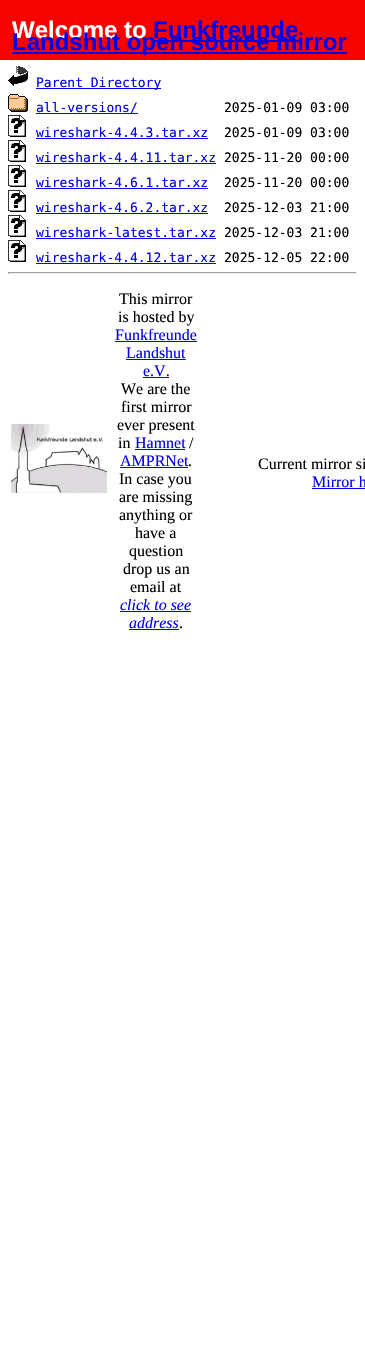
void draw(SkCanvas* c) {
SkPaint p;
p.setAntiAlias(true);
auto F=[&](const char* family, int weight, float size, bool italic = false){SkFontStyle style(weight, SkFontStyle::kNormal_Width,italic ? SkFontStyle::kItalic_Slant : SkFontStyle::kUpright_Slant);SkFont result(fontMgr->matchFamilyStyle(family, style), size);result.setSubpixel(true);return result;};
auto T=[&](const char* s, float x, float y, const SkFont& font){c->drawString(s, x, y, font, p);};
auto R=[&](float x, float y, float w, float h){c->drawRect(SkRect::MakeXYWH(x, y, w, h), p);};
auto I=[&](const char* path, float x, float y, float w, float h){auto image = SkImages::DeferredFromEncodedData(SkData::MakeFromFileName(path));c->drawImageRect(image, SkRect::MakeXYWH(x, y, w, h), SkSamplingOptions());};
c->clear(0xffffffff);
p.setColor(0xfff60300);
R(0,0,365,60);
auto f1 = F("Liberation Sans",700,24);
p.setColor(0xffffffff);
T("Welcome to",12,38,f1);
p.setColor(0xff0000ee);
T("Funkfreunde",153,38,f1);
R(153,40,146,2);
R(12,52,335,2);
T("Landshut open source mirror",12,50,f1);
I("1.png",8,66,20,20);
R(36,88,125,1);
auto f2 = F("DejaVu Sans Mono",400,13);
T("Parent Directory",36,87,f2);
I("2.png",8,94,20,18);
R(36,113,102,1);
T("all-versions/",36,112,f2);
p.setColor(0xff000000);
T("2025-01-09 03:00",224,112,f2);
I("3.png",8,115,18,22);
p.setColor(0xff0000ee);
T("wireshark-4.4.3.tar.xz",36,137,f2);
R(36,138,172,1);
p.setColor(0xff000000);
T("2025-01-09 03:00",224,137,f2);
I("3.png",8,140,18,22);
p.setColor(0xff0000ee);
T("wireshark-4.4.11.tar.xz",36,162,f2);
R(36,163,180,1);
p.setColor(0xff000000);
T("2025-11-20 00:00",224,162,f2);
I("3.png",8,165,18,22);
p.setColor(0xff0000ee);
T("wireshark-4.6.1.tar.xz",36,187,f2);
R(36,188,172,1);
p.setColor(0xff000000);
T("2025-11-20 00:00",224,187,f2);
I("3.png",8,190,18,22);
p.setColor(0xff0000ee);
T("wireshark-4.6.2.tar.xz",36,212,f2);
R(36,213,172,1);
p.setColor(0xff000000);
T("2025-12-03 21:00",224,212,f2);
I("3.png",8,215,18,22);
p.setColor(0xff0000ee);
T("wireshark-latest.tar.xz",36,237,f2);
R(36,238,180,1);
p.setColor(0xff000000);
T("2025-12-03 21:00",224,237,f2);
I("3.png",8,240,18,22);
p.setColor(0xff0000ee);
T("wireshark-4.4.12.tar.xz",36,262,f2);
R(36,263,180,1);
p.setColor(0xff000000);
T("2025-12-05 22:00",224,262,f2);
p.setColor(0xff9f9f9f);
R(8,272,349,1);
p.setColor(0xffeeeeee);
R(356,272,1,2);
R(8,273,349,1);
p.setColor(0xff9f9f9f);
R(8,272,1,2);
I("4.png",11,424,96,69);
auto f3 = F("Liberation Serif",400,16);
p.setColor(0xff000000);
T("This mirror",119,304,f3);
T("is hosted by",118,322,f3);
p.setColor(0xff0000ee);
T("Funkfreunde",115,340,f3);
R(115,341,82,1);
T("Landshut",126,358,f3);
R(126,359,60,1);
T("e.V.",143,376,f3);
R(143,377,26,1);
p.setColor(0xff000000);
T("We are the",121,394,f3);
T("first mirror",121,412,f3);
T("ever present",117,430,f3);
T("in",118,448,f3);
p.setColor(0xff0000ee);
T("Hamnet",135,448,f3);
R(135,449,50,1);
p.setColor(0xff000000);
T("/",189,448,f3);
p.setColor(0xff0000ee);
T("AMPRNet",120,466,f3);
R(120,467,68,1);
p.setColor(0xff000000);
T(".",188,466,f3);
T("In case you",119,484,f3);
T("are missing",119,502,f3);
T("anything or",119,520,f3);
T("have a",135,538,f3);
T("question",129,556,f3);
T("drop us an",123,574,f3);
T("email at",130,592,f3);
auto f4 = F("Liberation Serif",400,16,true);
p.setColor(0xff0000ee);
T("click to see",120,610,f4);
R(120,611,71,1);
T("address",129,628,f4);
R(129,629,50,1);
p.setColor(0xff000000);
T(".",179,628,f3);
T("Current mirror si",258,469,f3);
p.setColor(0xff0000ee);
T("Mirror h",312,487,f3);
R(312,488,53,1);
}
